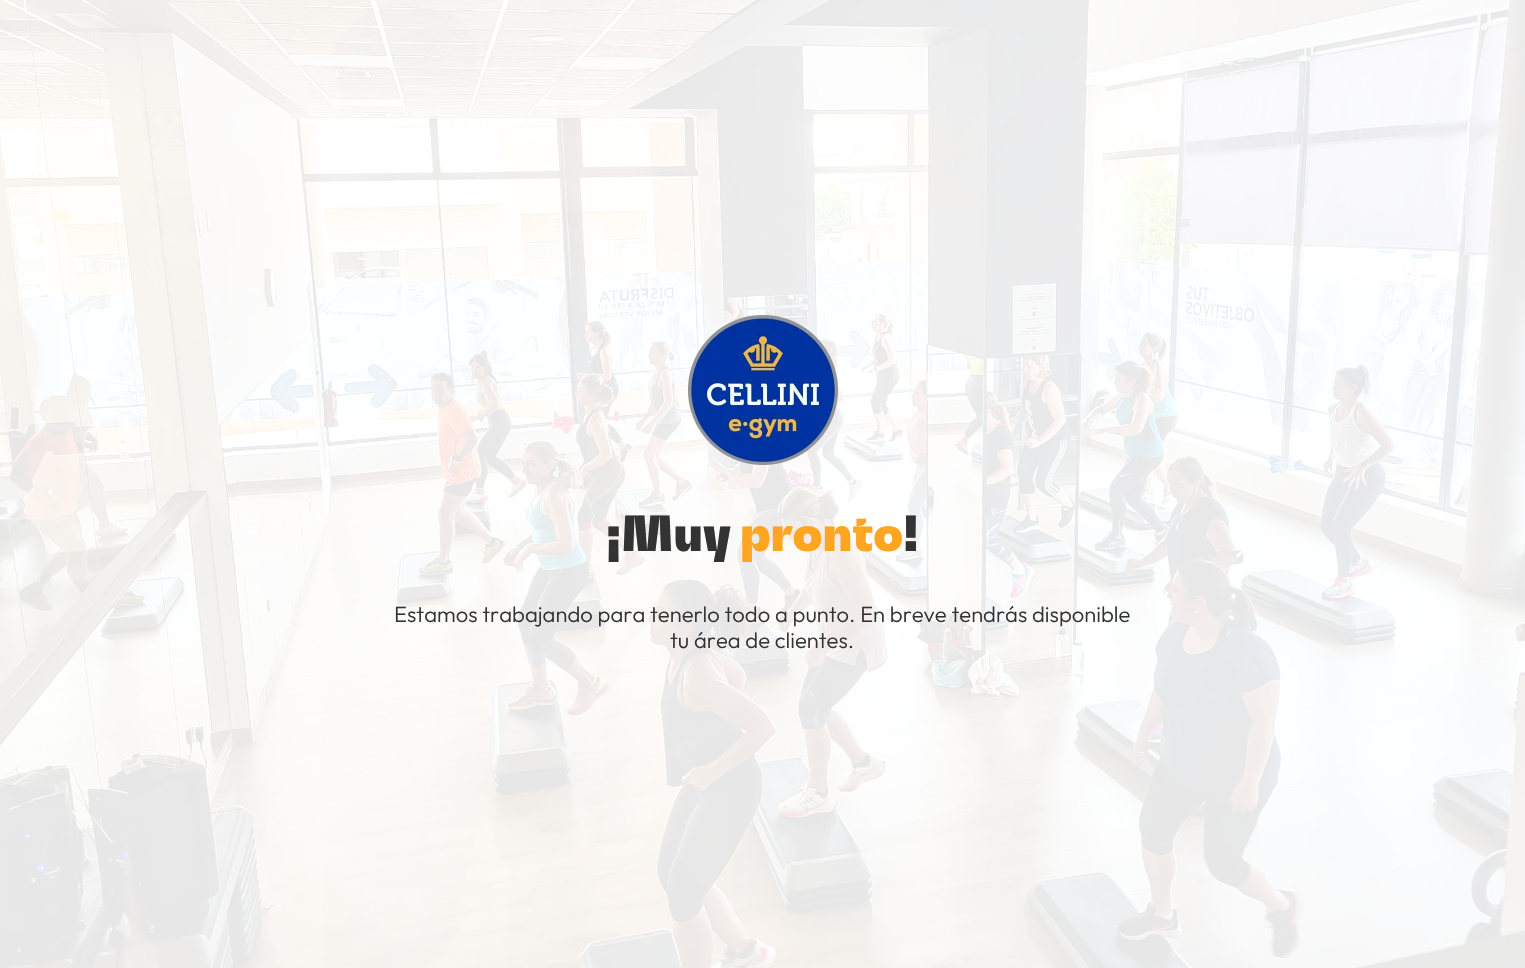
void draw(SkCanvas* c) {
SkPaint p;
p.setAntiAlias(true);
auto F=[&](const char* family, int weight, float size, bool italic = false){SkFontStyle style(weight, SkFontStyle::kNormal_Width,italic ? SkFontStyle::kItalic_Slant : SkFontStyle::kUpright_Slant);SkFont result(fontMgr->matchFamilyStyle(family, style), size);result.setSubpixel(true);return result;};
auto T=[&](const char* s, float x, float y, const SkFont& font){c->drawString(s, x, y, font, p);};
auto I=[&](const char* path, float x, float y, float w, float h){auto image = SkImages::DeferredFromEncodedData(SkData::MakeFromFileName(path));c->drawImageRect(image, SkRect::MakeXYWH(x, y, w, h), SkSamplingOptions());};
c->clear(0xffffffff);
I("1.png",0,0,1525,968);
I("2.png",688,315,150,150);
auto f1 = F("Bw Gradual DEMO",900,48);
p.setColor(0xff333333);
T("¡Muy",606,551,f1);
p.setColor(0xfffea622);
T("pronto",740,551,f1);
p.setColor(0xff333333);
T("!",903,551,f1);
auto f2 = F("Outfit",300,22);
T("Estamos trabajando para tenerlo todo a punto. En breve tendrás disponible",394,622,f2);
T("tu área de clientes.",670,648,f2);
}
